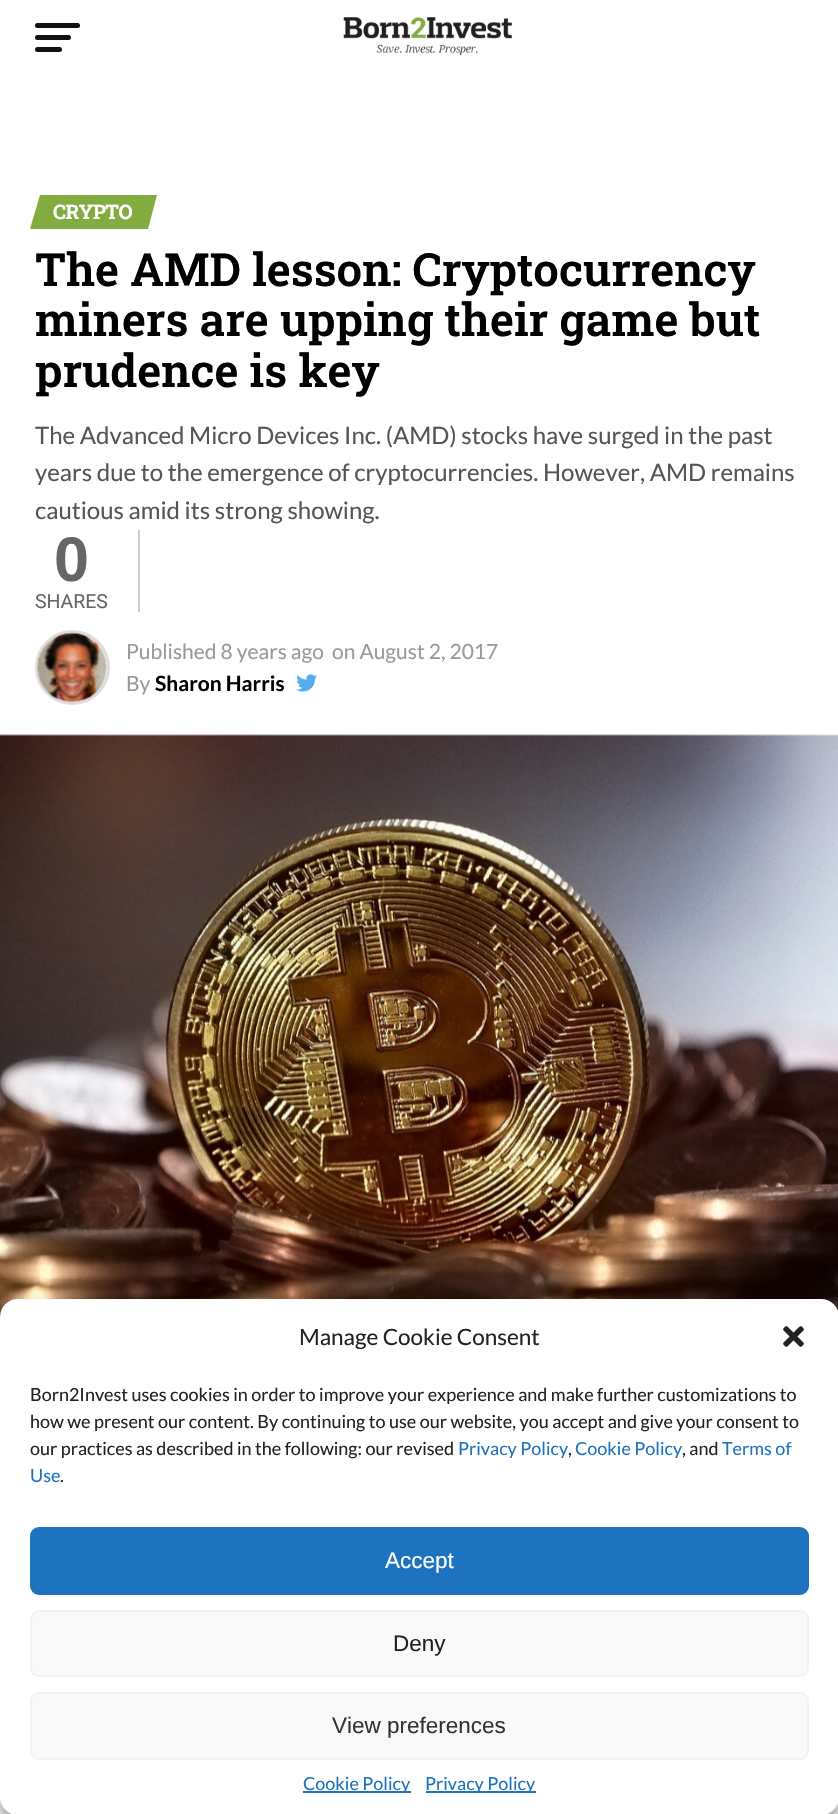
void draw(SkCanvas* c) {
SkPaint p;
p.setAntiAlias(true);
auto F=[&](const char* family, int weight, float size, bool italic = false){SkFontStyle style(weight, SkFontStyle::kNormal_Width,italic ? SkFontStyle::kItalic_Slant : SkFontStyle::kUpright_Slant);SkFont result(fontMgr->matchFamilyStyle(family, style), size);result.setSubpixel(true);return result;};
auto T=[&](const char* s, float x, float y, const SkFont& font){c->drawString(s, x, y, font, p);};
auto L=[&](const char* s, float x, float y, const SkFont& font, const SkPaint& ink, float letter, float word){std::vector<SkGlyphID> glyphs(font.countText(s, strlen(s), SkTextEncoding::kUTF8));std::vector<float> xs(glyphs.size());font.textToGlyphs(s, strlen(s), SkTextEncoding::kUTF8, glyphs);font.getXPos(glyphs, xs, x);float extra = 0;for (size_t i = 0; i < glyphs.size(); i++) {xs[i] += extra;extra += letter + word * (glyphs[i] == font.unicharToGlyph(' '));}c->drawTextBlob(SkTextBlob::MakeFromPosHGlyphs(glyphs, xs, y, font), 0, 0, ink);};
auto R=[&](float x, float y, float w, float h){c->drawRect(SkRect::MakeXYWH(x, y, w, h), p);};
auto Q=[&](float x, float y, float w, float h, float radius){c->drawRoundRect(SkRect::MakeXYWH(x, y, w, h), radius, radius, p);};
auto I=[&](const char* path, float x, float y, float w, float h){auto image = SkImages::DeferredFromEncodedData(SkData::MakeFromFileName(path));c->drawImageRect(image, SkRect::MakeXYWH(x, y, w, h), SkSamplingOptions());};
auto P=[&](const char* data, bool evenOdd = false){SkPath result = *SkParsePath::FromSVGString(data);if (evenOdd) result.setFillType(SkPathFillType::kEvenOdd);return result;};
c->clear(0xffffffff);
p.setColor(0xff131212);
Q(35,23,45,5,2.5);
Q(35,35,36,5,2.5);
Q(35,47,27,5,2.5);
I("1.png",343,17,170,39);
p.setColor(0xff82ab40);
c->drawPath(P("M40 195h117l-9 34h-118z"),p);
auto f1 = F("Roboto Slab",700,20);
p.setColor(0xffffffff);
L("CRYPTO",53,219,f1,p,-.5,0);
auto f2 = F("Roboto Slab",600,45.6);
p.setColor(0xff000000);
T("The AMD lesson: Cryptocurrency",35,286,f2);
T("miners are upping their game but",35,336,f2);
T("prudence is key",35,387,f2);
auto f3 = F("Lato",400,24);
p.setColor(0xff555555);
T("The Advanced Micro Devices Inc. (AMD) stocks have surged in the past",35,444,f3);
T("years due to the emergence of cryptocurrencies. However, AMD remains",35,481,f3);
T("cautious amid its strong showing.",35,519,f3);
p.setColor(0xffcccccc);
R(138,530,2,82);
auto f4 = F("Liberation Sans",700,63);
p.setColor(0xff666666);
T("0",54,581,f4);
auto f5 = F("Roboto",400,19.5);
T("SHARES",35,608,f5);
p.setStroke(true);
p.setStrokeWidth(3);
p.setColor(0xffdddddd);
c->drawCircle(72.5,667.5,36,p);
I("2.png",37,632,70,71);
auto f6 = F("Lato",400,21);
p.setStroke(false);
p.setColor(0xff999999);
T("Published 8 years ago",126,659,f6);
T("on August 2, 2017",332,659,f6);
T("By",126,691,f6);
auto f7 = F("Lato",700,21);
p.setColor(0xff000000);
T("Sharon Harris",155,691,f7);
I("3.png",296,674,21,18);
I("4.png",0,734,838,583);
p.setColor(0x3b000000);
p.setMaskFilter(SkMaskFilter::MakeBlur(kNormal_SkBlurStyle, 4.5));
c->drawRoundRect(SkRect::MakeXYWH(0,1308,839,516),18,18,p);
p.setMaskFilter(nullptr);
p.setColor(0x30000000);
p.setMaskFilter(SkMaskFilter::MakeBlur(kNormal_SkBlurStyle, 15));
c->drawRoundRect(SkRect::MakeXYWH(0,1314,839,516),18,18,p);
p.setMaskFilter(nullptr);
p.setColor(0xffffffff);
Q(0,1299,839,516,18);
auto f8 = F("Lato",400,22.5);
p.setColor(0xff222222);
T("Manage Cookie Consent",299,1345,f8);
I("5.png",783,1326,21,21);
auto f9 = F("Lato",400,18);
T("Born2Invest uses cookies in order to improve your experience and make further customizations to",30,1401,f9);
T("how we present our content. By continuing to use our website, you accept and give your consent to",30,1428,f9);
T("our practices as described in the following: our revised",30,1455,f9);
p.setColor(0xff1e73be);
T("Privacy Policy",458,1455,f9);
p.setColor(0xff222222);
T(",",568,1455,f9);
p.setColor(0xff1e73be);
T("Cookie Policy",575,1455,f9);
p.setColor(0xff222222);
T(", and",682,1455,f9);
p.setColor(0xff1e73be);
T("Terms of",722,1455,f9);
T("Use",30,1482,f9);
p.setColor(0xff222222);
T(".",60,1482,f9);
p.setColor(0xff1e73be);
c->drawRoundRect(SkRect::MakeXYWH(31,1528,777,66),8,8,p);
p.setStroke(true);
p.setStrokeWidth(2);
c->drawRoundRect(SkRect::MakeXYWH(31,1528,777,66),8,8,p);
auto f10 = F("Liberation Sans",400,22.5);
p.setStroke(false);
p.setColor(0xffffffff);
T("Accept",385,1568,f10);
p.setColor(0xfff9f9f9);
c->drawRoundRect(SkRect::MakeXYWH(31,1611,777,65),8,8,p);
p.setStroke(true);
p.setColor(0xfff2f2f2);
c->drawRoundRect(SkRect::MakeXYWH(31,1611,777,65),8,8,p);
p.setStroke(false);
p.setColor(0xff222222);
T("Deny",393,1651,f10);
p.setColor(0xfff9f9f9);
c->drawRoundRect(SkRect::MakeXYWH(31,1693,777,66),8,8,p);
p.setStroke(true);
p.setColor(0xfff2f2f2);
c->drawRoundRect(SkRect::MakeXYWH(31,1693,777,66),8,8,p);
p.setStroke(false);
p.setColor(0xff333333);
T("View preferences",332,1733,f10);
p.setColor(0xff1e73be);
R(303,1791,108,2);
T("Cookie Policy",303,1790,f9);
R(426,1791,110,2);
T("Privacy Policy",425,1790,f9);
}
